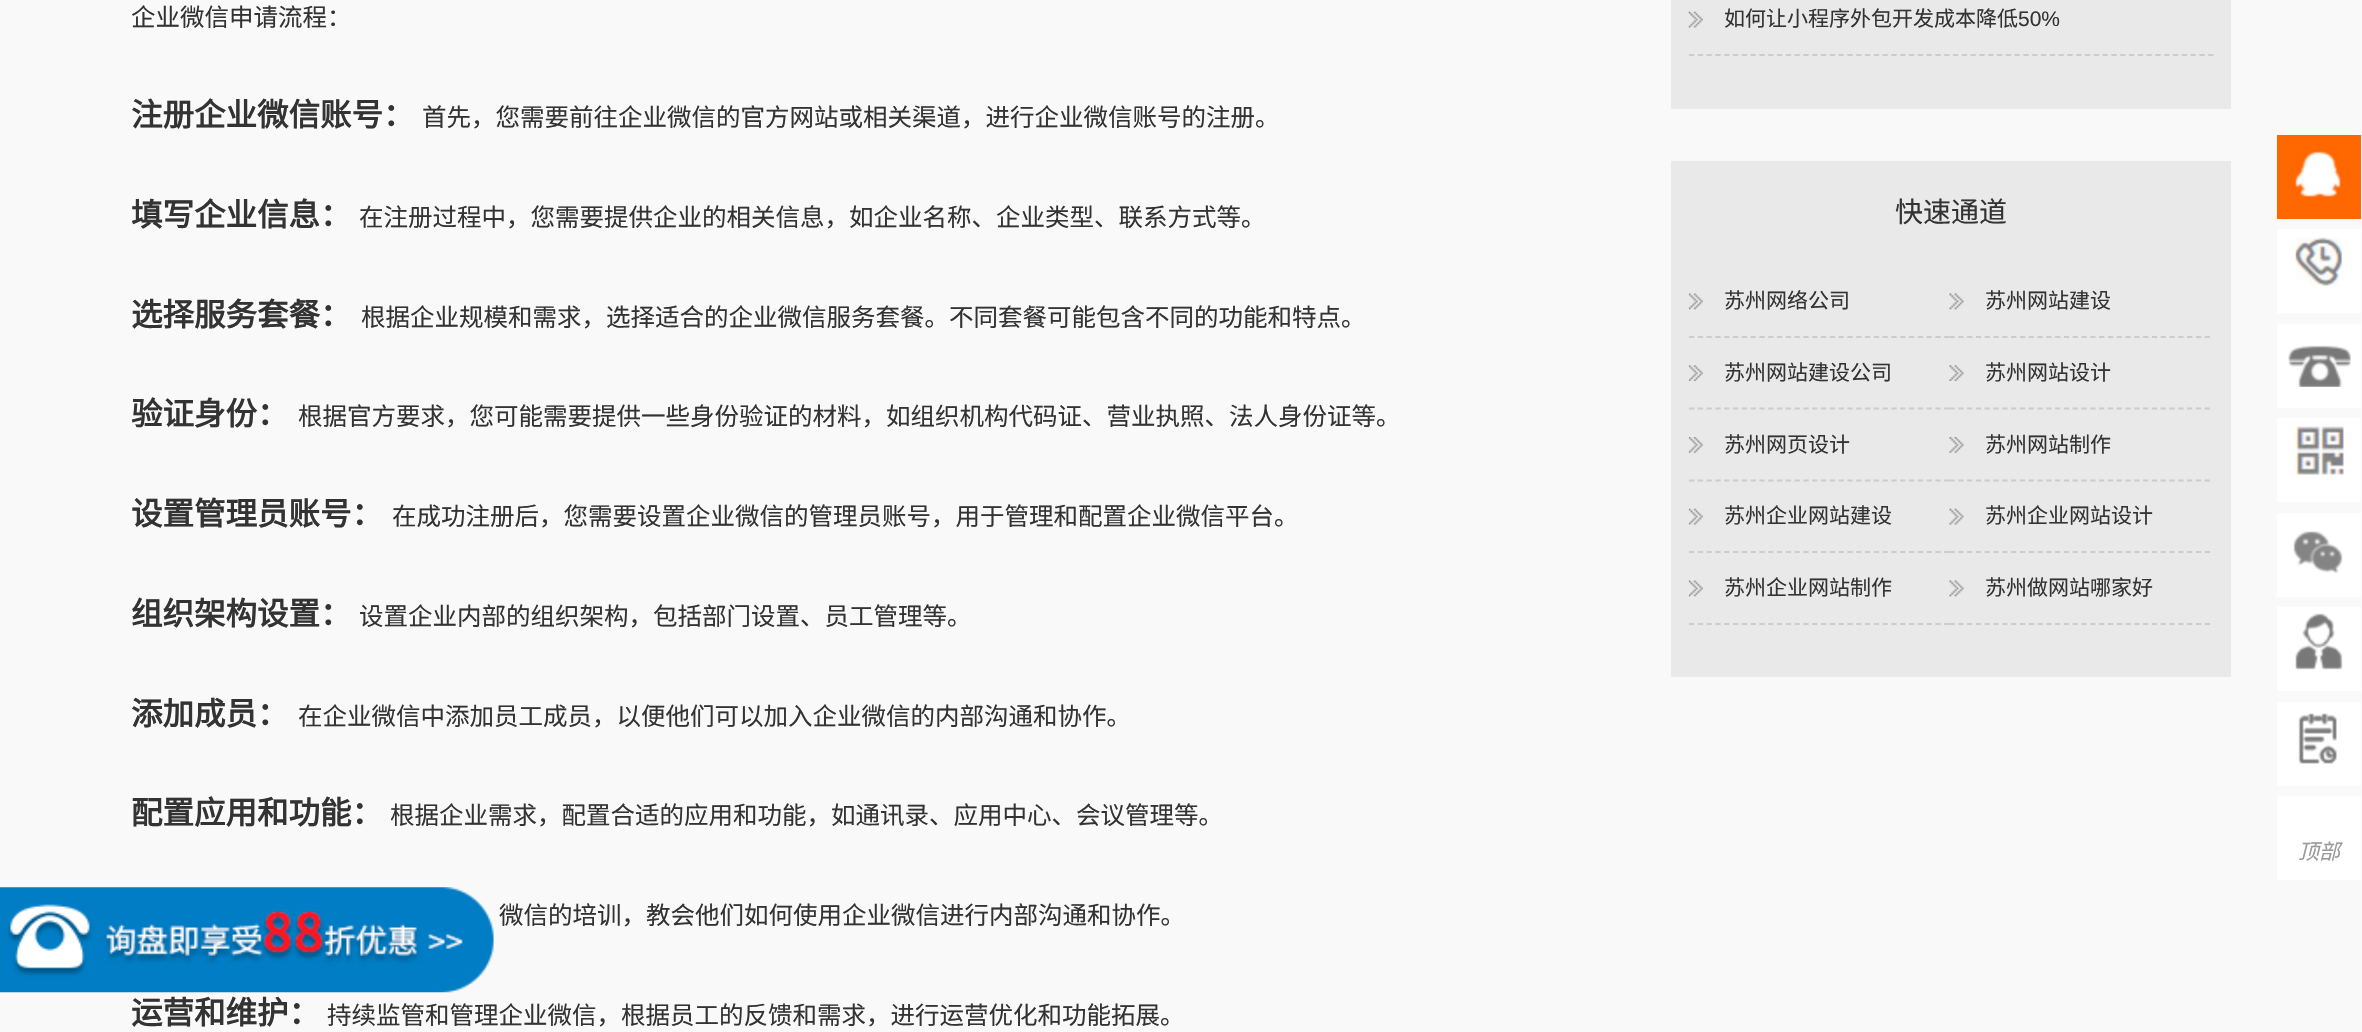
void draw(SkCanvas* c) {
SkPaint p;
p.setAntiAlias(true);
auto F=[&](const char* family, int weight, float size, bool italic = false){SkFontStyle style(weight, SkFontStyle::kNormal_Width,italic ? SkFontStyle::kItalic_Slant : SkFontStyle::kUpright_Slant);SkFont result(fontMgr->matchFamilyStyle(family, style), size);result.setSubpixel(true);return result;};
auto T=[&](const char* s, float x, float y, const SkFont& font){c->drawString(s, x, y, font, p);};
auto R=[&](float x, float y, float w, float h){c->drawRect(SkRect::MakeXYWH(x, y, w, h), p);};
auto I=[&](const char* path, float x, float y, float w, float h){auto image = SkImages::DeferredFromEncodedData(SkData::MakeFromFileName(path));c->drawImageRect(image, SkRect::MakeXYWH(x, y, w, h), SkSamplingOptions());};
auto P=[&](const char* data, bool evenOdd = false){SkPath result = *SkParsePath::FromSVGString(data);if (evenOdd) result.setFillType(SkPathFillType::kEvenOdd);return result;};
c->clear(0xfff9f9f9);
auto f1 = F("Noto Sans CJK SC",400,24.5);
p.setColor(0xff333333);
T("企业微信申请流程：",131,26,f1);
auto f2 = F("Noto Sans CJK SC",700,31.5);
T("注册企业微信账号：",131,126,f2);
T("首先，您需要前往企业微信的官方网站或相关渠道，进行企业微信账号的注册。",422,126,f1);
T("填写企业信息：",131,226,f2);
T("在注册过程中，您需要提供企业的相关信息，如企业名称、企业类型、联系方式等。",359,226,f1);
T("选择服务套餐：",131,326,f2);
T("根据企业规模和需求，选择适合的企业微信服务套餐。不同套餐可能包含不同的功能和特点。",361,326,f1);
T("验证身份：",131,425,f2);
T("根据官方要求，您可能需要提供一些身份验证的材料，如组织机构代码证、营业执照、法人身份证等。",298,425,f1);
T("设置管理员账号：",131,525,f2);
T("在成功注册后，您需要设置企业微信的管理员账号，用于管理和配置企业微信平台。",392,525,f1);
T("组织架构设置：",131,625,f2);
T("设置企业内部的组织架构，包括部门设置、员工管理等。",359,625,f1);
T("添加成员：",131,725,f2);
T("在企业微信中添加员工成员，以便他们可以加入企业微信的内部沟通和协作。",298,725,f1);
T("配置应用和功能：",131,824,f2);
T("根据企业需求，配置合适的应用和功能，如通讯录、应用中心、会议管理等。",390,824,f1);
T("微信的培训，教会他们如何使用企业微信进行内部沟通和协作。",499,924,f1);
T("运营和维护：",131,1024,f2);
T("持续监管和管理企业微信，根据员工的反馈和需求，进行运营优化和功能拓展。",327,1024,f1);
p.setColor(0xffeae9e9);
R(1671,0,560,109);
I("1.png",1688,11,15,17);
p.setStroke(true);
p.setStrokeWidth(1.8);
p.setColor(0xffcccccc);
p.setPathEffect(SkDashPathEffect::Make({{5.25f,3.55f}}, 0));
c->drawPath(P("M1689 55h525"),p);
p.setPathEffect(nullptr);
auto f3 = F("Noto Sans CJK SC",400,21);
p.setStroke(false);
p.setColor(0xff333333);
T("如何让小程序外包开发成本降低",1724,26,f3);
auto f4 = F("Liberation Sans",400,21);
T("50%",2018,26,f4);
p.setColor(0xffeae9e9);
R(1671,161,560,516);
auto f5 = F("Noto Sans CJK SC",400,28);
p.setColor(0xff333333);
T("快速通道",1895,222,f5);
I("2.png",1688,293,15,17);
p.setStroke(true);
p.setColor(0xffcccccc);
p.setPathEffect(SkDashPathEffect::Make({{5.25f,3.55f}}, 0));
c->drawPath(P("M1689 337h260.5"),p);
p.setPathEffect(nullptr);
p.setStroke(false);
p.setColor(0xff333333);
T("苏州网络公司",1724,308,f3);
I("3.png",1949,293,15,17);
p.setStroke(true);
p.setColor(0xffcccccc);
p.setPathEffect(SkDashPathEffect::Make({{5.25f,3.55f}}, 0));
c->drawPath(P("M1949.5 337h260.5"),p);
p.setPathEffect(nullptr);
p.setStroke(false);
p.setColor(0xff333333);
T("苏州网站建设",1985,308,f3);
I("4.png",1688,365,15,16);
p.setStroke(true);
p.setColor(0xffcccccc);
p.setPathEffect(SkDashPathEffect::Make({{5.25f,3.55f}}, 0));
c->drawPath(P("M1689 408.5h260.5"),p);
p.setPathEffect(nullptr);
p.setStroke(false);
p.setColor(0xff333333);
T("苏州网站建设公司",1724,380,f3);
I("5.png",1949,365,15,16);
p.setStroke(true);
p.setColor(0xffcccccc);
p.setPathEffect(SkDashPathEffect::Make({{5.25f,3.55f}}, 0));
c->drawPath(P("M1949.5 408.5h260.5"),p);
p.setPathEffect(nullptr);
p.setStroke(false);
p.setColor(0xff333333);
T("苏州网站设计",1985,380,f3);
I("6.png",1688,437,15,16);
p.setStroke(true);
p.setColor(0xffcccccc);
p.setPathEffect(SkDashPathEffect::Make({{5.25f,3.55f}}, 0));
c->drawPath(P("M1689 480.5h260.5"),p);
p.setPathEffect(nullptr);
p.setStroke(false);
p.setColor(0xff333333);
T("苏州网页设计",1724,452,f3);
I("7.png",1949,437,15,16);
p.setStroke(true);
p.setColor(0xffcccccc);
p.setPathEffect(SkDashPathEffect::Make({{5.25f,3.55f}}, 0));
c->drawPath(P("M1949.5 480.5h260.5"),p);
p.setPathEffect(nullptr);
p.setStroke(false);
p.setColor(0xff333333);
T("苏州网站制作",1985,452,f3);
I("8.png",1688,508,15,17);
p.setStroke(true);
p.setColor(0xffcccccc);
p.setPathEffect(SkDashPathEffect::Make({{5.25f,3.55f}}, 0));
c->drawPath(P("M1689 552h260.5"),p);
p.setPathEffect(nullptr);
p.setStroke(false);
p.setColor(0xff333333);
T("苏州企业网站建设",1724,523,f3);
I("9.png",1949,508,15,17);
p.setStroke(true);
p.setColor(0xffcccccc);
p.setPathEffect(SkDashPathEffect::Make({{5.25f,3.55f}}, 0));
c->drawPath(P("M1949.5 552h260.5"),p);
p.setPathEffect(nullptr);
p.setStroke(false);
p.setColor(0xff333333);
T("苏州企业网站设计",1985,523,f3);
I("2.png",1688,580,15,17);
p.setStroke(true);
p.setColor(0xffcccccc);
p.setPathEffect(SkDashPathEffect::Make({{5.25f,3.55f}}, 0));
c->drawPath(P("M1689 624h260.5"),p);
p.setPathEffect(nullptr);
p.setStroke(false);
p.setColor(0xff333333);
T("苏州企业网站制作",1724,595,f3);
I("3.png",1949,580,15,17);
p.setStroke(true);
p.setColor(0xffcccccc);
p.setPathEffect(SkDashPathEffect::Make({{5.25f,3.55f}}, 0));
c->drawPath(P("M1949.5 624h260.5"),p);
p.setPathEffect(nullptr);
p.setStroke(false);
p.setColor(0xff333333);
T("苏州做网站哪家好",1985,595,f3);
p.setColor(0xffff6800);
R(2277,135,84,84);
I("10.png",2295,151,46,46);
p.setColor(0xffffffff);
R(2277,229,84,84);
I("11.png",2295,237,47,49);
R(2277,324,84,84);
I("12.png",2288,345,63,42);
R(2277,418,84,84);
I("13.png",2295,426,49,49);
R(2277,513,84,84);
I("14.png",2293,531,50,42);
R(2277,607,84,84);
I("15.png",2295,613,48,57);
R(2277,702,84,84);
I("16.png",2298,713,39,51);
R(2277,796,84,84);
auto f6 = F("Noto Sans CJK SC",400,21,true);
p.setColor(0xff999999);
T("顶部",2298,859,f6);
I("17.png",0,887,494,106);
}
